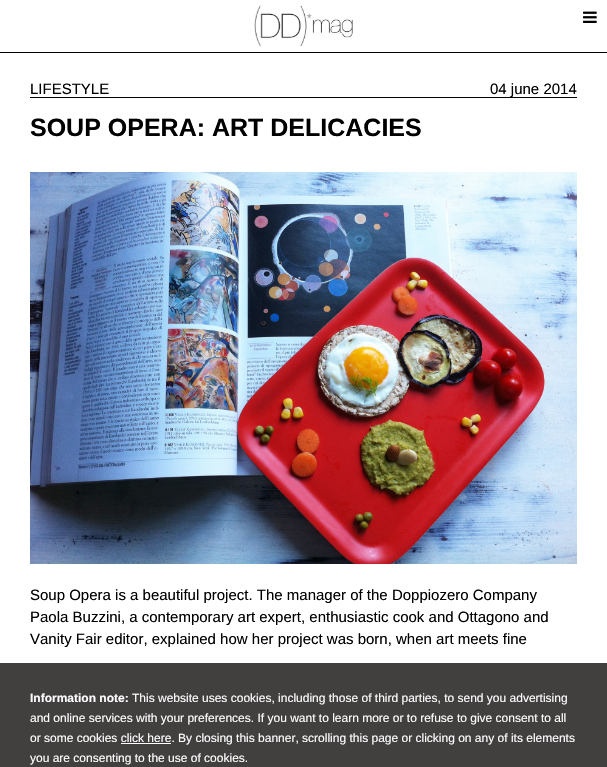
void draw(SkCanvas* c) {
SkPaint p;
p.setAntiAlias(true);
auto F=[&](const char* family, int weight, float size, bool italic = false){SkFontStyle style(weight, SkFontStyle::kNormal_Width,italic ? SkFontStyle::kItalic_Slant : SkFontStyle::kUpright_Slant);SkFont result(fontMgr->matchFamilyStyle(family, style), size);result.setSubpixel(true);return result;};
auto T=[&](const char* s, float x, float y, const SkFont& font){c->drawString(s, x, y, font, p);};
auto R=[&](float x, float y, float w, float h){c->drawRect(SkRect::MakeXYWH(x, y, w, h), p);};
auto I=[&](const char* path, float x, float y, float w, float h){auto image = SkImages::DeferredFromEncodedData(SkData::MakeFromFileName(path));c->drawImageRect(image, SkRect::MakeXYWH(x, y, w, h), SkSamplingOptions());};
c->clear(0xffffffff);
p.setColor(0xff000000);
R(0,52,607,1);
I("1.png",254,5,99,41);
I("2.png",583,11,14,12);
p.setColor(0xff010202);
R(30,97,547,1);
auto f1 = F("Liberation Sans",400,15);
p.setColor(0xff000000);
T("LIFESTYLE",30,94,f1);
T("04 june 2014",490,94,f1);
auto f2 = F("Liberation Sans",700,25);
T("SOUP OPERA: ART DELICACIES",30,136,f2);
I("3.png",30,172,547,392);
T("Soup Opera is a beautiful project. The manager of the Doppiozero Company",30,600,f1);
T("Paola Buzzini, a contemporary art expert, enthusiastic cook and Ottagono and",30,622,f1);
T("Vanity Fair editor, explained how her project was born, when art meets fine",30,644,f1);
p.setColor(0xf2383535);
R(0,663,607,104);
auto f3 = F("Liberation Sans",700,12);
p.setColor(0xffffffff);
T("Information note:",30,702,f3);
auto f4 = F("Liberation Sans",400,12);
T("This website uses cookies, including those of third parties, to send you advertising",132,702,f4);
T("and online services with your preferences. If you want to learn more or to refuse to give consent to all",30,722,f4);
T("or some cookies click here. By closing this banner, scrolling this page or clicking on any of its elements",30,742,f4);
R(121,743,50,1);
T("you are consenting to the use of cookies.",30,762,f4);
}
